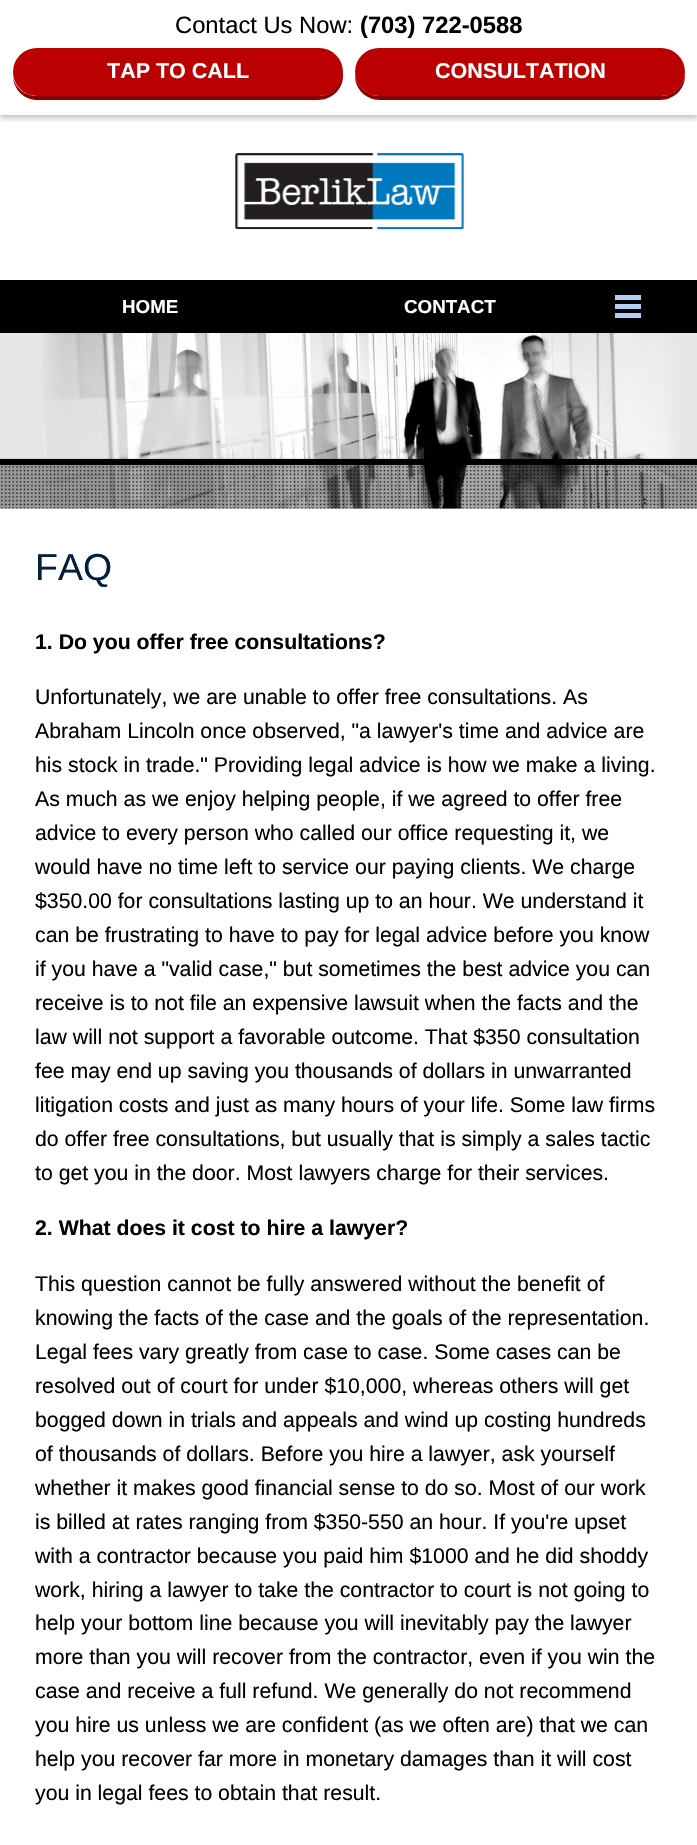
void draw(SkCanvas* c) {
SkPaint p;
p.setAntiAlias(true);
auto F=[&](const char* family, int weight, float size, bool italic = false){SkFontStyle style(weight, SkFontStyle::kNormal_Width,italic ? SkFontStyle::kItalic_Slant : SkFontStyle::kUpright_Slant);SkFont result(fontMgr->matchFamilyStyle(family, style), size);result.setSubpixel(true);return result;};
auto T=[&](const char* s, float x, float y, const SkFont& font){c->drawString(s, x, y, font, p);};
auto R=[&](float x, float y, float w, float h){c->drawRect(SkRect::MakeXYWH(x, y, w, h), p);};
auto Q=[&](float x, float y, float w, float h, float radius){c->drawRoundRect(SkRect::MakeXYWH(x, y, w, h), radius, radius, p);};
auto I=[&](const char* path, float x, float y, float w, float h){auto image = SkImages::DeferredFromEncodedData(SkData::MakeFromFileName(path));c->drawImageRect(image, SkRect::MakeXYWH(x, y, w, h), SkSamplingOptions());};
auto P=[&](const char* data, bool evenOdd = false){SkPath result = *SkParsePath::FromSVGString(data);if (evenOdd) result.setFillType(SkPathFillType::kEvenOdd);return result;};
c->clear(0xffffffff);
c->save();
c->clipRect(SkRect::MakeXYWH(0,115,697,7));
p.setColor(0x42000000);
p.setMaskFilter(SkMaskFilter::MakeBlur(kNormal_SkBlurStyle, 3));
c->drawRect(SkRect::MakeXYWH(0,3,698,115),p);
p.setMaskFilter(nullptr);
c->restore();
auto f1 = F("Liberation Sans",400,23.75);
p.setColor(0xff000000);
T("Contact Us Now:",175,33,f1);
auto f2 = F("Liberation Sans",700,23.75);
T("(703) 722-0588",360,33,f2);
p.setColor(0xff870000);
c->drawPath(P("M13 77c1 13 11 23 25 23h280c14 0 25-11 25-24l-1-6v2c0 13-10 24-24 24h-281c-12 0-22-8-24-19z"),p);
p.setColor(0xffba0000);
Q(13,48,330,48,24);
auto f3 = F("Liberation Sans",700,21.5);
p.setColor(0xffffffff);
T("TAP TO CALL",107,78,f3);
p.setColor(0xff870000);
c->drawPath(P("M355 74v2c0 13 11 24 25 24h280c14 0 25-11 25-24v-2c-1 12-12 22-24 22h-282c-12 0-23-10-24-22z"),p);
p.setColor(0xffba0000);
Q(355,48,330,48,24);
p.setColor(0xffffffff);
T("CONSULTATION",435,78,f3);
I("1.png",235,153,229,77);
p.setColor(0xff000000);
R(0,280,697,53);
auto f4 = F("Liberation Sans",700,18.75);
p.setColor(0xffffffff);
T("HOME",122,313,f4);
T("CONTACT",404,313,f4);
p.setColor(0xffb2cef6);
R(615,295,26,5);
R(615,304,26,5);
R(615,313,26,5);
p.setColor(0xffe5e5e5);
R(0,333,697,176);
I("2.png",42,333,645,176);
I("3.png",0,458,697,51);
p.setColor(0xff000000);
R(0,459,697,6);
auto f5 = F("Liberation Sans",400,37.5);
p.setColor(0xff02203c);
T("FAQ",35,580,f5);
auto f6 = F("Liberation Sans",700,21.25);
p.setColor(0xff000000);
T("1. Do you offer free consultations?",35,649,f6);
auto f7 = F("Liberation Sans",400,21.25);
T("Unfortunately, we are unable to offer free consultations. As",35,704,f7);
T("Abraham Lincoln once observed, \"a lawyer's time and advice are",35,738,f7);
T("his stock in trade.\" Providing legal advice is how we make a living.",35,772,f7);
T("As much as we enjoy helping people, if we agreed to offer free",35,806,f7);
T("advice to every person who called our office requesting it, we",35,840,f7);
T("would have no time left to service our paying clients. We charge",35,874,f7);
T("$350.00 for consultations lasting up to an hour. We understand it",35,908,f7);
T("can be frustrating to have to pay for legal advice before you know",35,942,f7);
T("if you have a \"valid case,\" but sometimes the best advice you can",35,976,f7);
T("receive is to not file an expensive lawsuit when the facts and the",35,1010,f7);
T("law will not support a favorable outcome. That $350 consultation",35,1044,f7);
T("fee may end up saving you thousands of dollars in unwarranted",35,1078,f7);
T("litigation costs and just as many hours of your life. Some law firms",35,1112,f7);
T("do offer free consultations, but usually that is simply a sales tactic",35,1146,f7);
T("to get you in the door. Most lawyers charge for their services.",35,1180,f7);
T("2. What does it cost to hire a lawyer?",35,1235,f6);
T("This question cannot be fully answered without the benefit of",35,1291,f7);
T("knowing the facts of the case and the goals of the representation.",35,1325,f7);
T("Legal fees vary greatly from case to case. Some cases can be",35,1359,f7);
T("resolved out of court for under $10,000, whereas others will get",35,1393,f7);
T("bogged down in trials and appeals and wind up costing hundreds",35,1427,f7);
T("of thousands of dollars. Before you hire a lawyer, ask yourself",35,1461,f7);
T("whether it makes good financial sense to do so. Most of our work",35,1495,f7);
T("is billed at rates ranging from $350-550 an hour. If you're upset",35,1529,f7);
T("with a contractor because you paid him $1000 and he did shoddy",35,1563,f7);
T("work, hiring a lawyer to take the contractor to court is not going to",35,1597,f7);
T("help your bottom line because you will inevitably pay the lawyer",35,1630,f7);
T("more than you will recover from the contractor, even if you win the",35,1664,f7);
T("case and receive a full refund. We generally do not recommend",35,1698,f7);
T("you hire us unless we are confident (as we often are) that we can",35,1732,f7);
T("help you recover far more in monetary damages than it will cost",35,1766,f7);
T("you in legal fees to obtain that result.",35,1800,f7);
}
